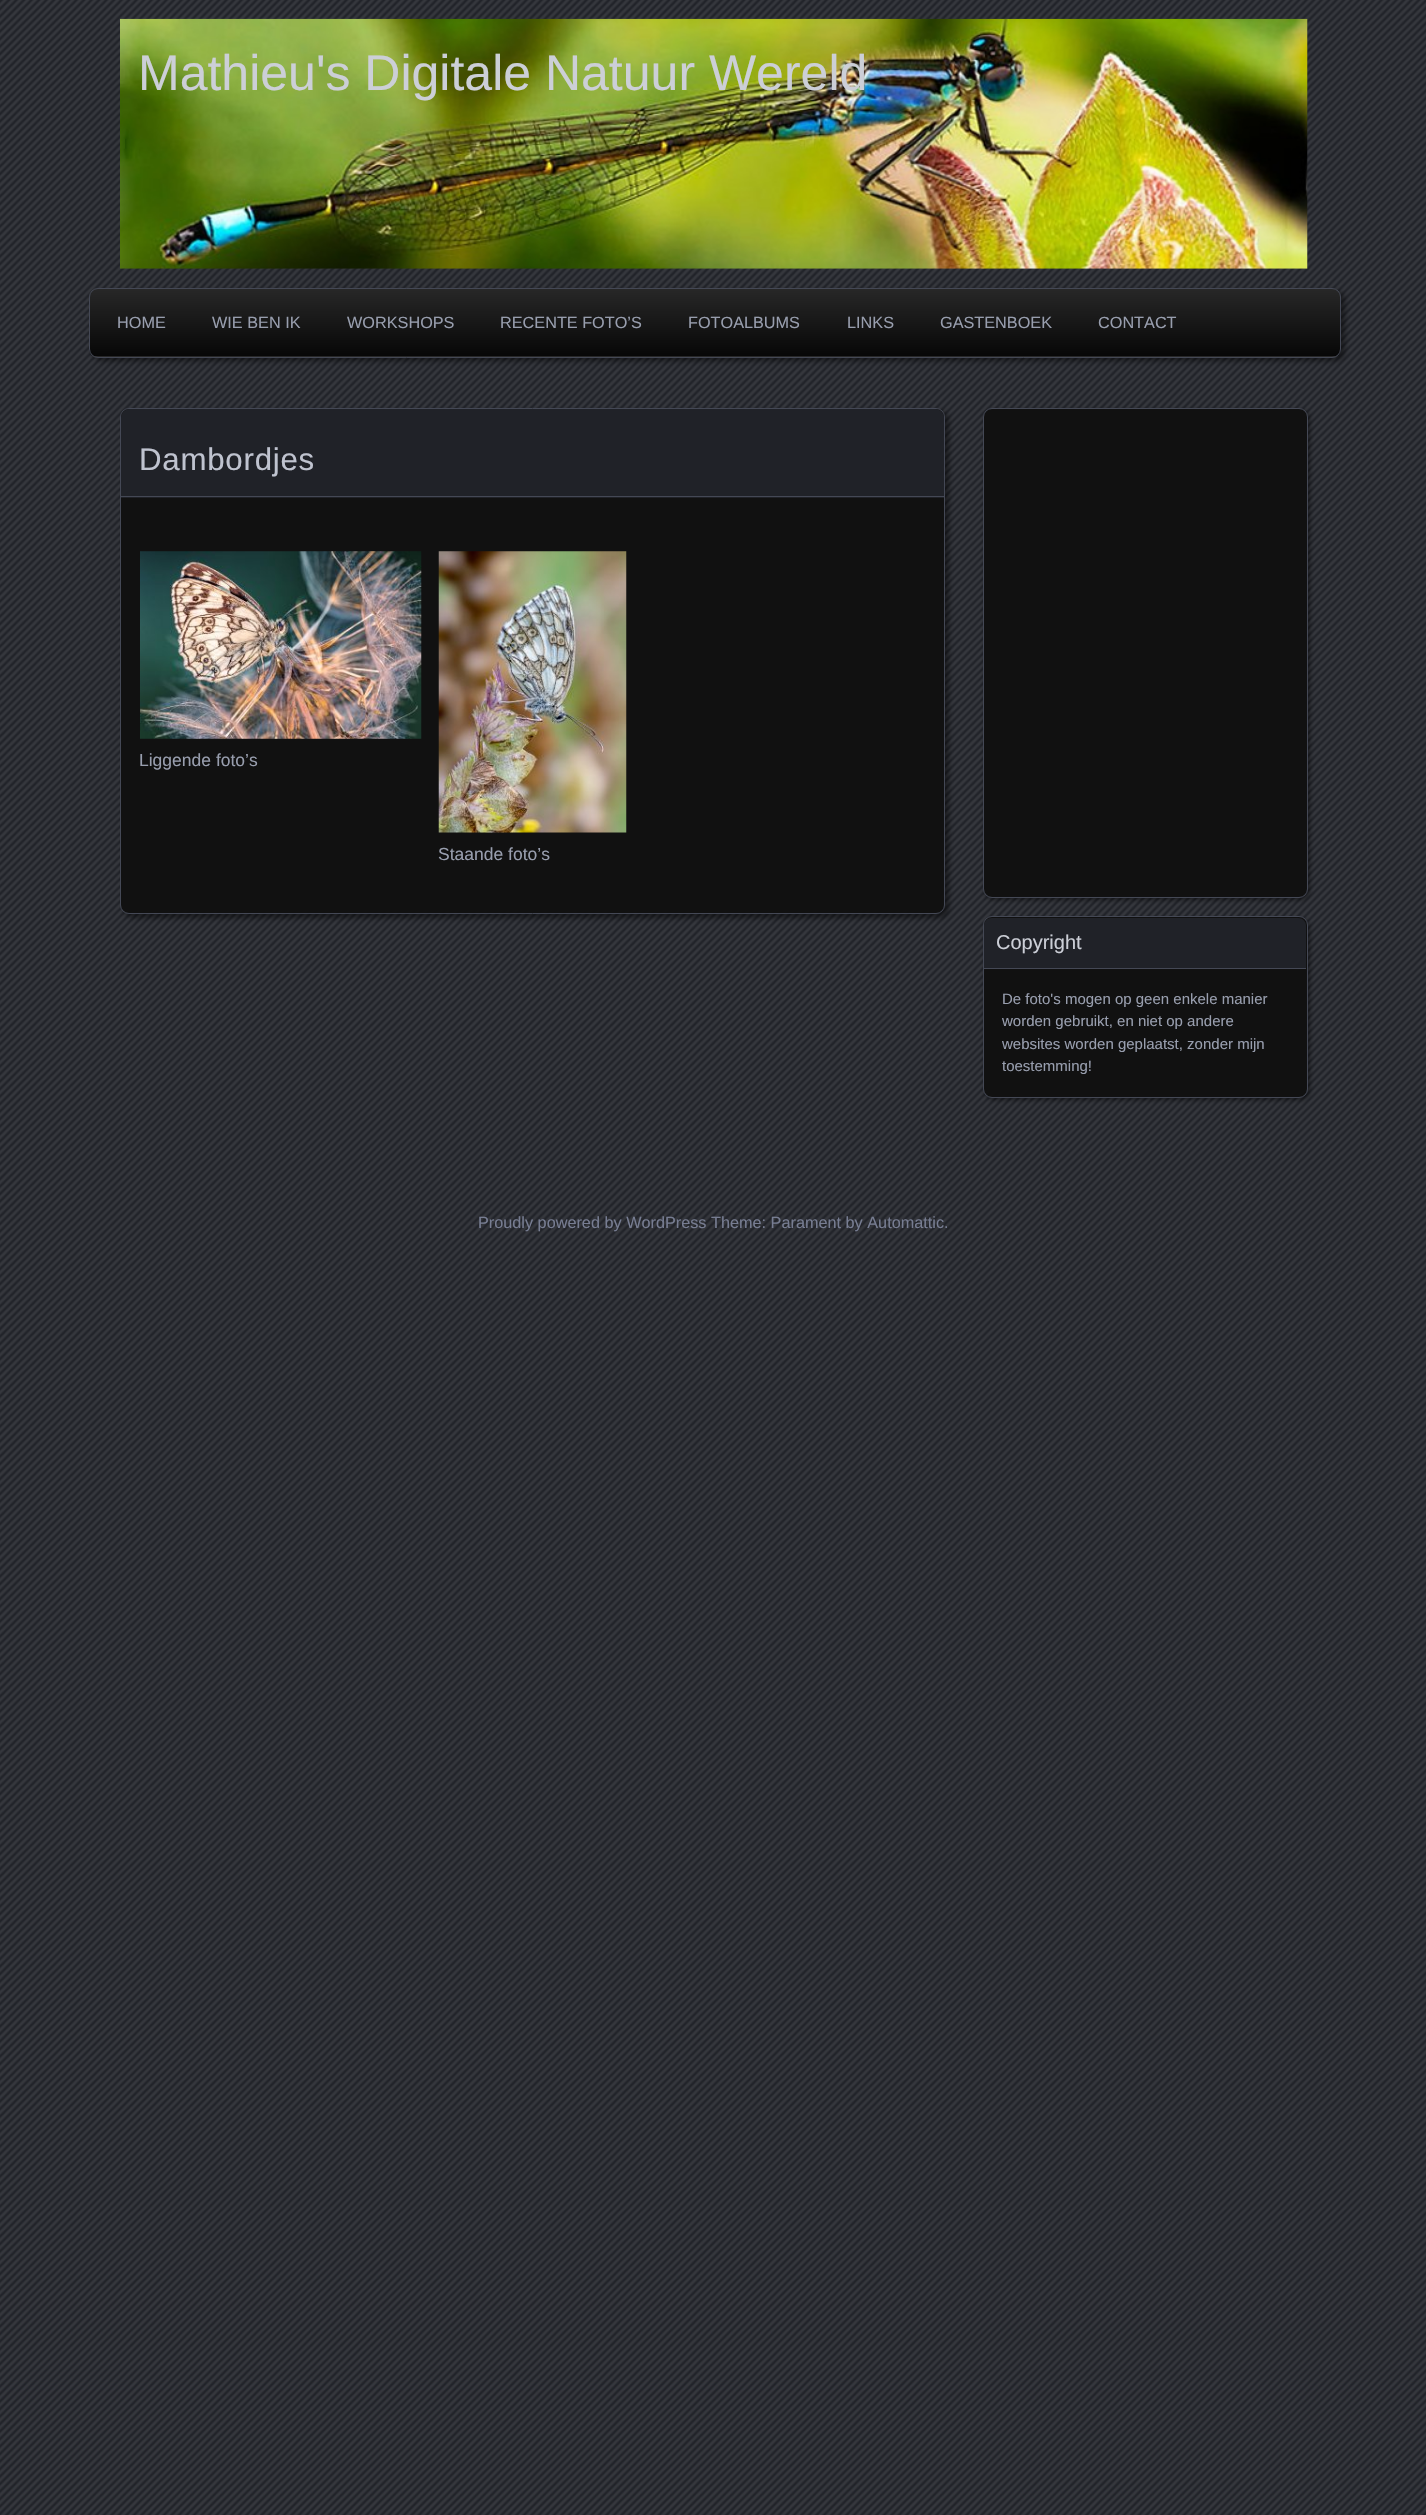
void draw(SkCanvas* c) {
SkPaint p;
p.setAntiAlias(true);
auto F=[&](const char* family, int weight, float size, bool italic = false){SkFontStyle style(weight, SkFontStyle::kNormal_Width,italic ? SkFontStyle::kItalic_Slant : SkFontStyle::kUpright_Slant);SkFont result(fontMgr->matchFamilyStyle(family, style), size);result.setSubpixel(true);return result;};
auto T=[&](const char* s, float x, float y, const SkFont& font){c->drawString(s, x, y, font, p);};
auto L=[&](const char* s, float x, float y, const SkFont& font, const SkPaint& ink, float letter, float word){std::vector<SkGlyphID> glyphs(font.countText(s, strlen(s), SkTextEncoding::kUTF8));std::vector<float> xs(glyphs.size());font.textToGlyphs(s, strlen(s), SkTextEncoding::kUTF8, glyphs);font.getXPos(glyphs, xs, x);float extra = 0;for (size_t i = 0; i < glyphs.size(); i++) {xs[i] += extra;extra += letter + word * (glyphs[i] == font.unicharToGlyph(' '));}c->drawTextBlob(SkTextBlob::MakeFromPosHGlyphs(glyphs, xs, y, font), 0, 0, ink);};
auto R=[&](float x, float y, float w, float h){c->drawRect(SkRect::MakeXYWH(x, y, w, h), p);};
auto I=[&](const char* path, float x, float y, float w, float h){auto image = SkImages::DeferredFromEncodedData(SkData::MakeFromFileName(path));c->drawImageRect(image, SkRect::MakeXYWH(x, y, w, h), SkSamplingOptions());};
auto P=[&](const char* data, bool evenOdd = false){SkPath result = *SkParsePath::FromSVGString(data);if (evenOdd) result.setFillType(SkPathFillType::kEvenOdd);return result;};
c->clear(0xff202228);
I("1.png",0,0,1426,2515);
I("2.png",120,18,1188,251);
auto f1 = F("Liberation Sans",400,50);
p.setColor(0xffcccfd7);
T("Mathieu's Digitale Natuur Wereld",138,90,f1);
p.setColor(0x73000000);
p.setMaskFilter(SkMaskFilter::MakeBlur(kNormal_SkBlurStyle, 2.5));
c->drawRoundRect(SkRect::MakeXYWH(93,291,1252,70),9,9,p);
p.setMaskFilter(nullptr);
c->save();
c->clipPath(P("M98 288h1234c5 0 9 4 9 9v52c0 5-4 9-9 9h-1234c-5 0-9-4-9-9v-52c0-5 4-9 9-9z"),true);
{
const SkColor colors[] = {0xff272727,0xff070707};
const float stops[] = {.01,1};
const SkPoint ends[] = {{715,289}, {715,356}};
p.setShader(SkGradientShader::MakeLinear(ends, colors, stops, 2, SkTileMode::kClamp));
p.setAlpha(255);
}
R(89,289,1252,67);
{
const SkColor colors[] = {0xff272727,0xff070707};
const float stops[] = {.01,1};
const SkPoint ends[] = {{715,356}, {715,424}};
p.setShader(SkGradientShader::MakeLinear(ends, colors, stops, 2, SkTileMode::kClamp));
p.setAlpha(255);
}
R(89,356,1252,2);
c->restore();
p.setStroke(true);
p.setStrokeWidth(1);
p.setShader(nullptr);
p.setColor(0xff444855);
c->drawRoundRect(SkRect::MakeXYWH(89.5,288.5,1251,69),8.5,8.5,p);
auto f2 = F("Liberation Sans",400,16.25);
p.setStroke(false);
p.setColor(0xff989eae);
T("HOME",117,328,f2);
T("WIE BEN IK",212,328,f2);
T("WORKSHOPS",347,328,f2);
T("RECENTE FOTO’S",500,328,f2);
T("FOTOALBUMS",688,328,f2);
T("LINKS",847,328,f2);
T("GASTENBOEK",940,328,f2);
T("CONTACT",1098,328,f2);
p.setColor(0x73000000);
p.setMaskFilter(SkMaskFilter::MakeBlur(kNormal_SkBlurStyle, 2.5));
c->drawRoundRect(SkRect::MakeXYWH(124,411,825,507),9,9,p);
p.setMaskFilter(nullptr);
p.setColor(0xff111111);
c->drawRoundRect(SkRect::MakeXYWH(120.5,408.5,824,505),8.5,8.5,p);
p.setStroke(true);
p.setColor(0xff444855);
c->drawRoundRect(SkRect::MakeXYWH(120.5,408.5,824,505),8.5,8.5,p);
p.setStroke(false);
p.setColor(0xff202228);
c->drawPath(P("M130 409h805c5 0 9 4 9 9v80h-823v-80c0-5 4-9 9-9z"),p);
p.setColor(0xff444855);
R(121,496,823,1);
auto f3 = F("Liberation Sans",400,31.25);
p.setColor(0xffbfc3cf);
L("Dambordjes",139,470,f3,p,.75,0);
I("3.png",140,551,282,188);
auto f4 = F("Liberation Sans",400,17.5);
p.setColor(0xff989eae);
T("Liggende foto’s",139,766,f4);
I("4.png",438,551,189,282);
T("Staande foto’s",438,860,f4);
p.setColor(0x73000000);
p.setMaskFilter(SkMaskFilter::MakeBlur(kNormal_SkBlurStyle, 2));
c->drawRoundRect(SkRect::MakeXYWH(985,410,325,490),9,9,p);
p.setMaskFilter(nullptr);
p.setColor(0xff111111);
c->drawRoundRect(SkRect::MakeXYWH(983.5,408.5,324,489),8.5,8.5,p);
p.setStroke(true);
p.setColor(0xff444855);
c->drawRoundRect(SkRect::MakeXYWH(983.5,408.5,324,489),8.5,8.5,p);
p.setStroke(false);
p.setColor(0x73000000);
p.setMaskFilter(SkMaskFilter::MakeBlur(kNormal_SkBlurStyle, 2));
c->drawRoundRect(SkRect::MakeXYWH(985,919,325,181),9,9,p);
p.setMaskFilter(nullptr);
p.setColor(0xff111111);
c->drawRoundRect(SkRect::MakeXYWH(983.5,916.5,324,181),8.5,8.5,p);
p.setStroke(true);
p.setColor(0xff444855);
c->drawRoundRect(SkRect::MakeXYWH(983.5,916.5,324,181),8.5,8.5,p);
p.setStroke(false);
p.setColor(0xff202228);
c->drawPath(P("M992 918h306c4.5 0 8 3.5 8 8v43h-322v-43c0-4.5 3.5-8 8-8z"),p);
p.setColor(0xff444855);
R(984,968,322,1);
auto f5 = F("Liberation Sans",400,20);
p.setColor(0xffcccfd7);
T("Copyright",996,949,f5);
auto f6 = F("Liberation Sans",400,15);
p.setColor(0xff989eae);
T("De foto's mogen op geen enkele manier",1002,1004,f6);
T("worden gebruikt, en niet op andere",1002,1026,f6);
T("websites worden geplaatst, zonder mijn",1002,1049,f6);
T("toestemming!",1002,1071,f6);
p.setColor(0xff777d92);
T("Proudly powered by WordPress Theme: Parament by Automattic.",478,1228,f2);
}
